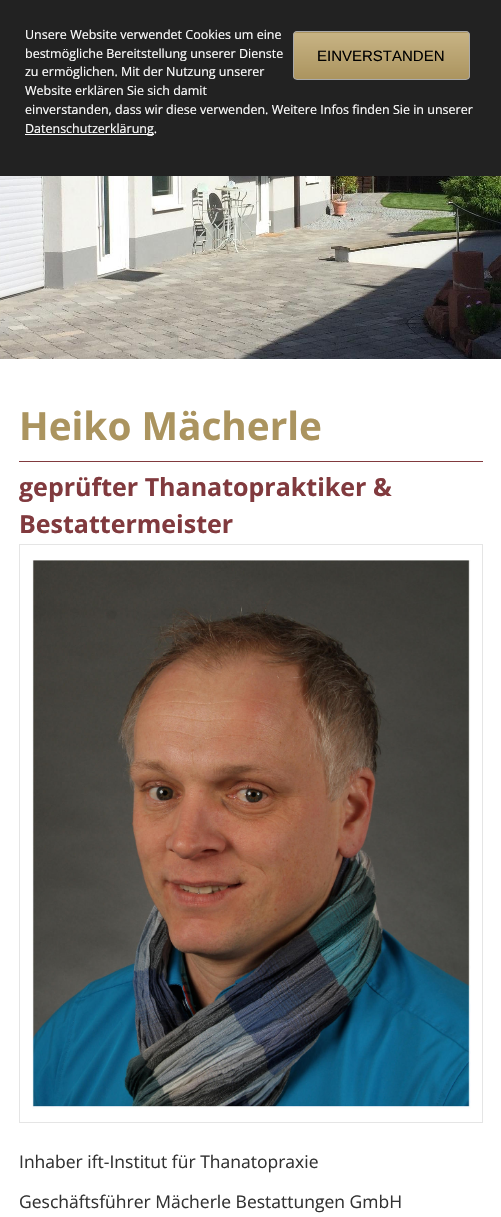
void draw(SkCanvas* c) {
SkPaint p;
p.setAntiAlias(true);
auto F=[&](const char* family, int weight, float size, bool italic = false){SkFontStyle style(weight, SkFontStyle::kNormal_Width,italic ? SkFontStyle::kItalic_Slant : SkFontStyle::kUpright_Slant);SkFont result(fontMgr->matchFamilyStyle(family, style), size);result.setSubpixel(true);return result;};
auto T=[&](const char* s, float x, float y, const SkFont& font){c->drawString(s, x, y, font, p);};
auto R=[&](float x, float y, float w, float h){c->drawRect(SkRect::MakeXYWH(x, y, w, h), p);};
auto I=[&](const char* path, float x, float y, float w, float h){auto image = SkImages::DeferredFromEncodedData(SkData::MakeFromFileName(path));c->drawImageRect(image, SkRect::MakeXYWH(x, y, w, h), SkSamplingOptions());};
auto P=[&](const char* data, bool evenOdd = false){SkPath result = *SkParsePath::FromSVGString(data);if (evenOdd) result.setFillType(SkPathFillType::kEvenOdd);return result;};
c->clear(0xffffffff);
p.setColor(0xff222222);
R(0,0,501,176);
auto f1 = F("Open Sans",400,12.5);
p.setColor(0xffffffff);
T("Unsere Website verwendet Cookies um eine",25,39,f1);
T("bestmögliche Bereitstellung unserer Dienste",25,58,f1);
T("zu ermöglichen. Mit der Nutzung unserer",25,76,f1);
T("Website erklären Sie sich damit",25,95,f1);
T("einverstanden, dass wir diese verwenden. Weitere Infos finden Sie in unserer",25,114,f1);
R(25,134,129,1);
T("Datenschutzerklärung.",25,133,f1);
c->save();
c->clipPath(P("M297 31h169c2 0 4 2 4 4v41c0 2-2 4-4 4h-169c-2 0-4-2-4-4v-41c0-2 2-4 4-4z"),true);
{
const SkColor colors[] = {0xffc8b485,0xffab945f};
const float stops[] = {0,1};
const SkPoint ends[] = {{381,-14}, {381,33}};
p.setShader(SkGradientShader::MakeLinear(ends, colors, stops, 2, SkTileMode::kClamp));
p.setAlpha(255);
}
R(293,31,177,2);
{
const SkColor colors[] = {0xffc8b485,0xffab945f};
const float stops[] = {0,1};
const SkPoint ends[] = {{381,32}, {381,79}};
p.setShader(SkGradientShader::MakeLinear(ends, colors, stops, 2, SkTileMode::kClamp));
p.setAlpha(255);
}
R(293,33,177,46);
c->restore();
p.setStroke(true);
p.setStrokeWidth(1);
p.setShader(nullptr);
p.setColor(0xffaaaaaa);
c->drawRoundRect(SkRect::MakeXYWH(293.5,31.5,176,48),3.5,3.5,p);
auto f2 = F("Liberation Sans",400,15);
p.setStroke(false);
p.setColor(0xff000000);
T("EINVERSTANDEN",317,61,f2);
I("1.png",0,176,501,183);
p.setColor(0xff813a3e);
R(19,461,464,1);
auto f3 = F("Open Sans",700,38.75);
p.setColor(0xffab945f);
T("Heiko Mächerle",19,440,f3);
auto f4 = F("Open Sans",700,25);
p.setColor(0xff813a3e);
T("geprüfter Thanatopraktiker &",19,496,f4);
T("Bestattermeister",19,533,f4);
p.setStroke(true);
p.setColor(0xffe5e5e5);
c->drawRect(SkRect::MakeXYWH(19.5,544.5,463,578),p);
I("2.png",32,560,439,549);
auto f5 = F("Open Sans",400,17.5);
p.setStroke(false);
p.setColor(0xff333333);
T("Inhaber ift-Institut für Thanatopraxie",19,1168,f5);
T("Geschäftsführer Mächerle Bestattungen GmbH",19,1208,f5);
}
